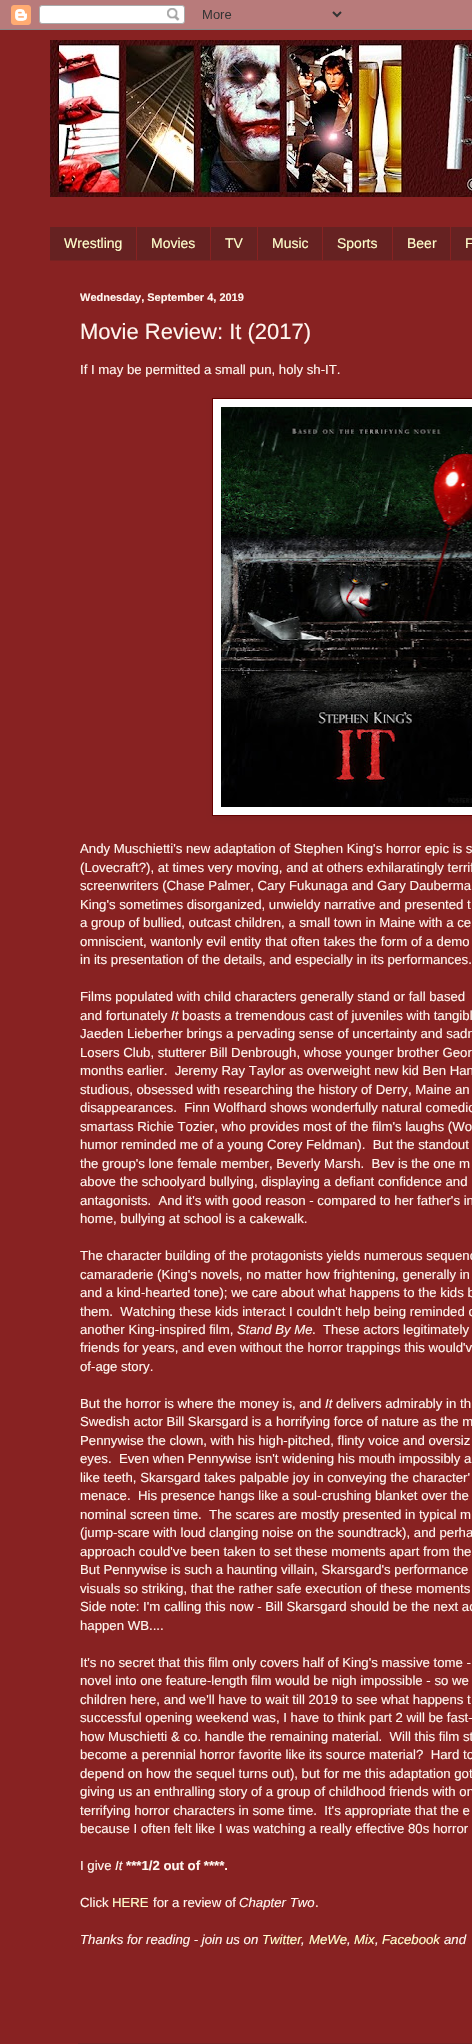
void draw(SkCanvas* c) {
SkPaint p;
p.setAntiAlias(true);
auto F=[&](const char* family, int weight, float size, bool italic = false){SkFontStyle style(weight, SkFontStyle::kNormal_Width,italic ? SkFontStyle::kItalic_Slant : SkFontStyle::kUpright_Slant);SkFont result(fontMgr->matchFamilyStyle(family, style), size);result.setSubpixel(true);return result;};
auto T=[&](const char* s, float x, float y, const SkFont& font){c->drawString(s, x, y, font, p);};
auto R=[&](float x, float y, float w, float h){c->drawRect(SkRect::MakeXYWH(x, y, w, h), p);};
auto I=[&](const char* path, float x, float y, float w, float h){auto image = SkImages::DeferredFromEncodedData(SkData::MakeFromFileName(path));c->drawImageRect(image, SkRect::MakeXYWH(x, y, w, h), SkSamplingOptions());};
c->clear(0xff882222);
I("1.png",0,0,472,30);
I("2.png",50,40,422,157);
p.setColor(0xff662222);
R(50,227,422,33);
p.setColor(0xff772222);
R(50,260,422,1);
auto f1 = F("Liberation Sans",400,14);
p.setColor(0xffffffcc);
T("Wrestling",64,248,f1);
p.setColor(0xff882222);
R(136,227,1,33);
p.setColor(0xffffffcc);
T("Movies",151,248,f1);
p.setColor(0xff882222);
R(210,227,1,33);
p.setColor(0xffffffcc);
T("TV",225,248,f1);
p.setColor(0xff882222);
R(257,227,1,33);
p.setColor(0xffffffcc);
T("Music",272,248,f1);
p.setColor(0xff882222);
R(322,227,1,33);
p.setColor(0xffffffcc);
T("Sports",337,248,f1);
p.setColor(0xff882222);
R(392,227,1,33);
p.setColor(0xffffffcc);
T("Beer",407,248,f1);
p.setColor(0xff882222);
R(450,227,1,33);
p.setColor(0xffffffcc);
T("F",465,248,f1);
auto f2 = F("Liberation Sans",700,11);
p.setColor(0xfffff5ee);
T("Wednesday, September 4, 2019",80,301,f2);
auto f3 = F("Liberation Sans",400,22);
T("Movie Review: It (2017)",80,339,f3);
auto f4 = F("Liberation Sans",400,13.2);
T("If I may be permitted a small pun, holy sh-IT.",80,374,f4);
p.setColor(0x1a000000);
p.setMaskFilter(SkMaskFilter::MakeBlur(kNormal_SkBlurStyle, 2.5));
c->drawRect(SkRect::MakeXYWH(213,399,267,418),p);
p.setMaskFilter(nullptr);
p.setColor(0xffffffff);
c->drawRect(SkRect::MakeXYWH(212.5,398.5,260,417),p);
p.setStroke(true);
p.setStrokeWidth(1);
p.setColor(0xff660000);
c->drawRect(SkRect::MakeXYWH(212.5,398.5,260,417),p);
I("3.png",221,407,251,400);
p.setStroke(false);
p.setColor(0xfffff5ee);
T("Andy Muschietti's new adaptation of Stephen King's horror epic is s",80,853,f4);
T("(Lovecraft?), at times very moving, and at others exhilaratingly terrif",80,872,f4);
T("screenwriters (Chase Palmer, Cary Fukunaga and Gary Dauberma",80,890,f4);
T("King's sometimes disorganized, unwieldy narrative and presented t",80,909,f4);
T("a group of bullied, outcast children, a small town in Maine with a ce",80,927,f4);
T("omniscient, wantonly evil entity that often takes the form of a demo",80,946,f4);
T("in its presentation of the details, and especially in its performances.",80,964,f4);
T("Films populated with child characters generally stand or fall based",80,1001,f4);
T("and fortunately",80,1020,f4);
auto f5 = F("Liberation Sans",400,13.2,true);
T("It",171,1020,f5);
T("boasts a tremendous cast of juveniles with tangibl",182,1020,f4);
T("Jaeden Lieberher brings a pervading sense of uncertainty and sadn",80,1038,f4);
T("Losers Club, stutterer Bill Denbrough, whose younger brother Geor",80,1057,f4);
T("months earlier.  Jeremy Ray Taylor as overweight new kid Ben Han",80,1075,f4);
T("studious, obsessed with researching the history of Derry, Maine an",80,1094,f4);
T("disappearances.  Finn Wolfhard shows wonderfully natural comedic",80,1112,f4);
T("smartass Richie Tozier, who provides most of the film's laughs (Wo",80,1131,f4);
T("humor reminded me of a young Corey Feldman).  But the standout",80,1149,f4);
T("the group's lone female member, Beverly Marsh.  Bev is the one m",80,1168,f4);
T("above the schoolyard bullying, displaying a defiant confidence and",80,1186,f4);
T("antagonists.  And it's with good reason - compared to her father's in",80,1205,f4);
T("home, bullying at school is a cakewalk.",80,1223,f4);
T("The character building of the protagonists yields numerous sequenc",80,1260,f4);
T("camaraderie (King's novels, no matter how frightening, generally in",80,1279,f4);
T("and a kind-hearted tone); we care about what happens to the kids b",80,1297,f4);
T("them.  Watching these kids interact I couldn't help being reminded o",80,1316,f4);
T("another King-inspired film,",80,1334,f4);
T("Stand By Me",237,1334,f5);
T(".  These actors legitimately",312,1334,f4);
T("friends for years, and even without the horror trappings this would'v",80,1352,f4);
T("of-age story.",80,1371,f4);
T("But the horror is where the money is, and",80,1408,f4);
T("It",325,1408,f5);
T("delivers admirably in th",336,1408,f4);
T("Swedish actor Bill Skarsgard is a horrifying force of nature as the m",80,1426,f4);
T("Pennywise the clown, with his high-pitched, flinty voice and oversiz",80,1445,f4);
T("eyes.  Even when Pennywise isn't widening his mouth impossibly a",80,1463,f4);
T("like teeth, Skarsgard takes palpable joy in conveying the character'",80,1482,f4);
T("menace.  His presence hangs like a soul-crushing blanket over the",80,1500,f4);
T("nominal screen time.  The scares are mostly presented in typical m",80,1519,f4);
T("(jump-scare with loud clanging noise on the soundtrack), and perha",80,1537,f4);
T("approach could've been taken to set these moments apart from the",80,1556,f4);
T("But Pennywise is such a haunting villain, Skarsgard's performance",80,1574,f4);
T("visuals so striking, that the rather safe execution of these moments",80,1593,f4);
T("Side note: I'm calling this now - Bill Skarsgard should be the next ac",80,1611,f4);
T("happen WB....",80,1630,f4);
T("It's no secret that this film only covers half of King's massive tome -",80,1667,f4);
T("novel into one feature-length film would be nigh impossible - so we",80,1685,f4);
T("children here, and we'll have to wait till 2019 to see what happens t",80,1704,f4);
T("successful opening weekend was, I have to think part 2 will be fast-",80,1722,f4);
T("how Muschietti & co. handle the remaining material.  Will this film st",80,1741,f4);
T("become a perennial horror favorite like its source material?  Hard to",80,1759,f4);
T("depend on how the sequel turns out), but for me this adaptation got",80,1778,f4);
T("giving us an enthralling story of a group of childhood friends with on",80,1796,f4);
T("terrifying horror characters in some time.  It's appropriate that the e",80,1815,f4);
T("because I often felt like I was watching a really effective 80s horror",80,1833,f4);
T("I give",80,1870,f4);
T("It",115,1870,f5);
auto f6 = F("Liberation Sans",700,13.2);
T("***1/2 out of ****.",126,1870,f6);
T("Click",80,1907,f4);
p.setColor(0xffffffcc);
T("HERE",112,1907,f4);
p.setColor(0xfffff5ee);
T("for a review of",153,1907,f4);
T("Chapter Two",239,1907,f5);
T(".",315,1907,f4);
T("Thanks for reading - join us on",80,1944,f5);
p.setColor(0xffffffcc);
T("Twitter",262,1944,f5);
p.setColor(0xfffff5ee);
T(",",301,1944,f5);
p.setColor(0xffffffcc);
T("MeWe",309,1944,f5);
p.setColor(0xfffff5ee);
T(",",347,1944,f5);
p.setColor(0xffffffcc);
T("Mix",354,1944,f5);
T("Facebook",382,1944,f5);
p.setColor(0xfffff5ee);
T("and",444,1944,f5);
T(",",375,1944,f5);
p.setColor(0xff772222);
R(78,2043,394,1);
}
